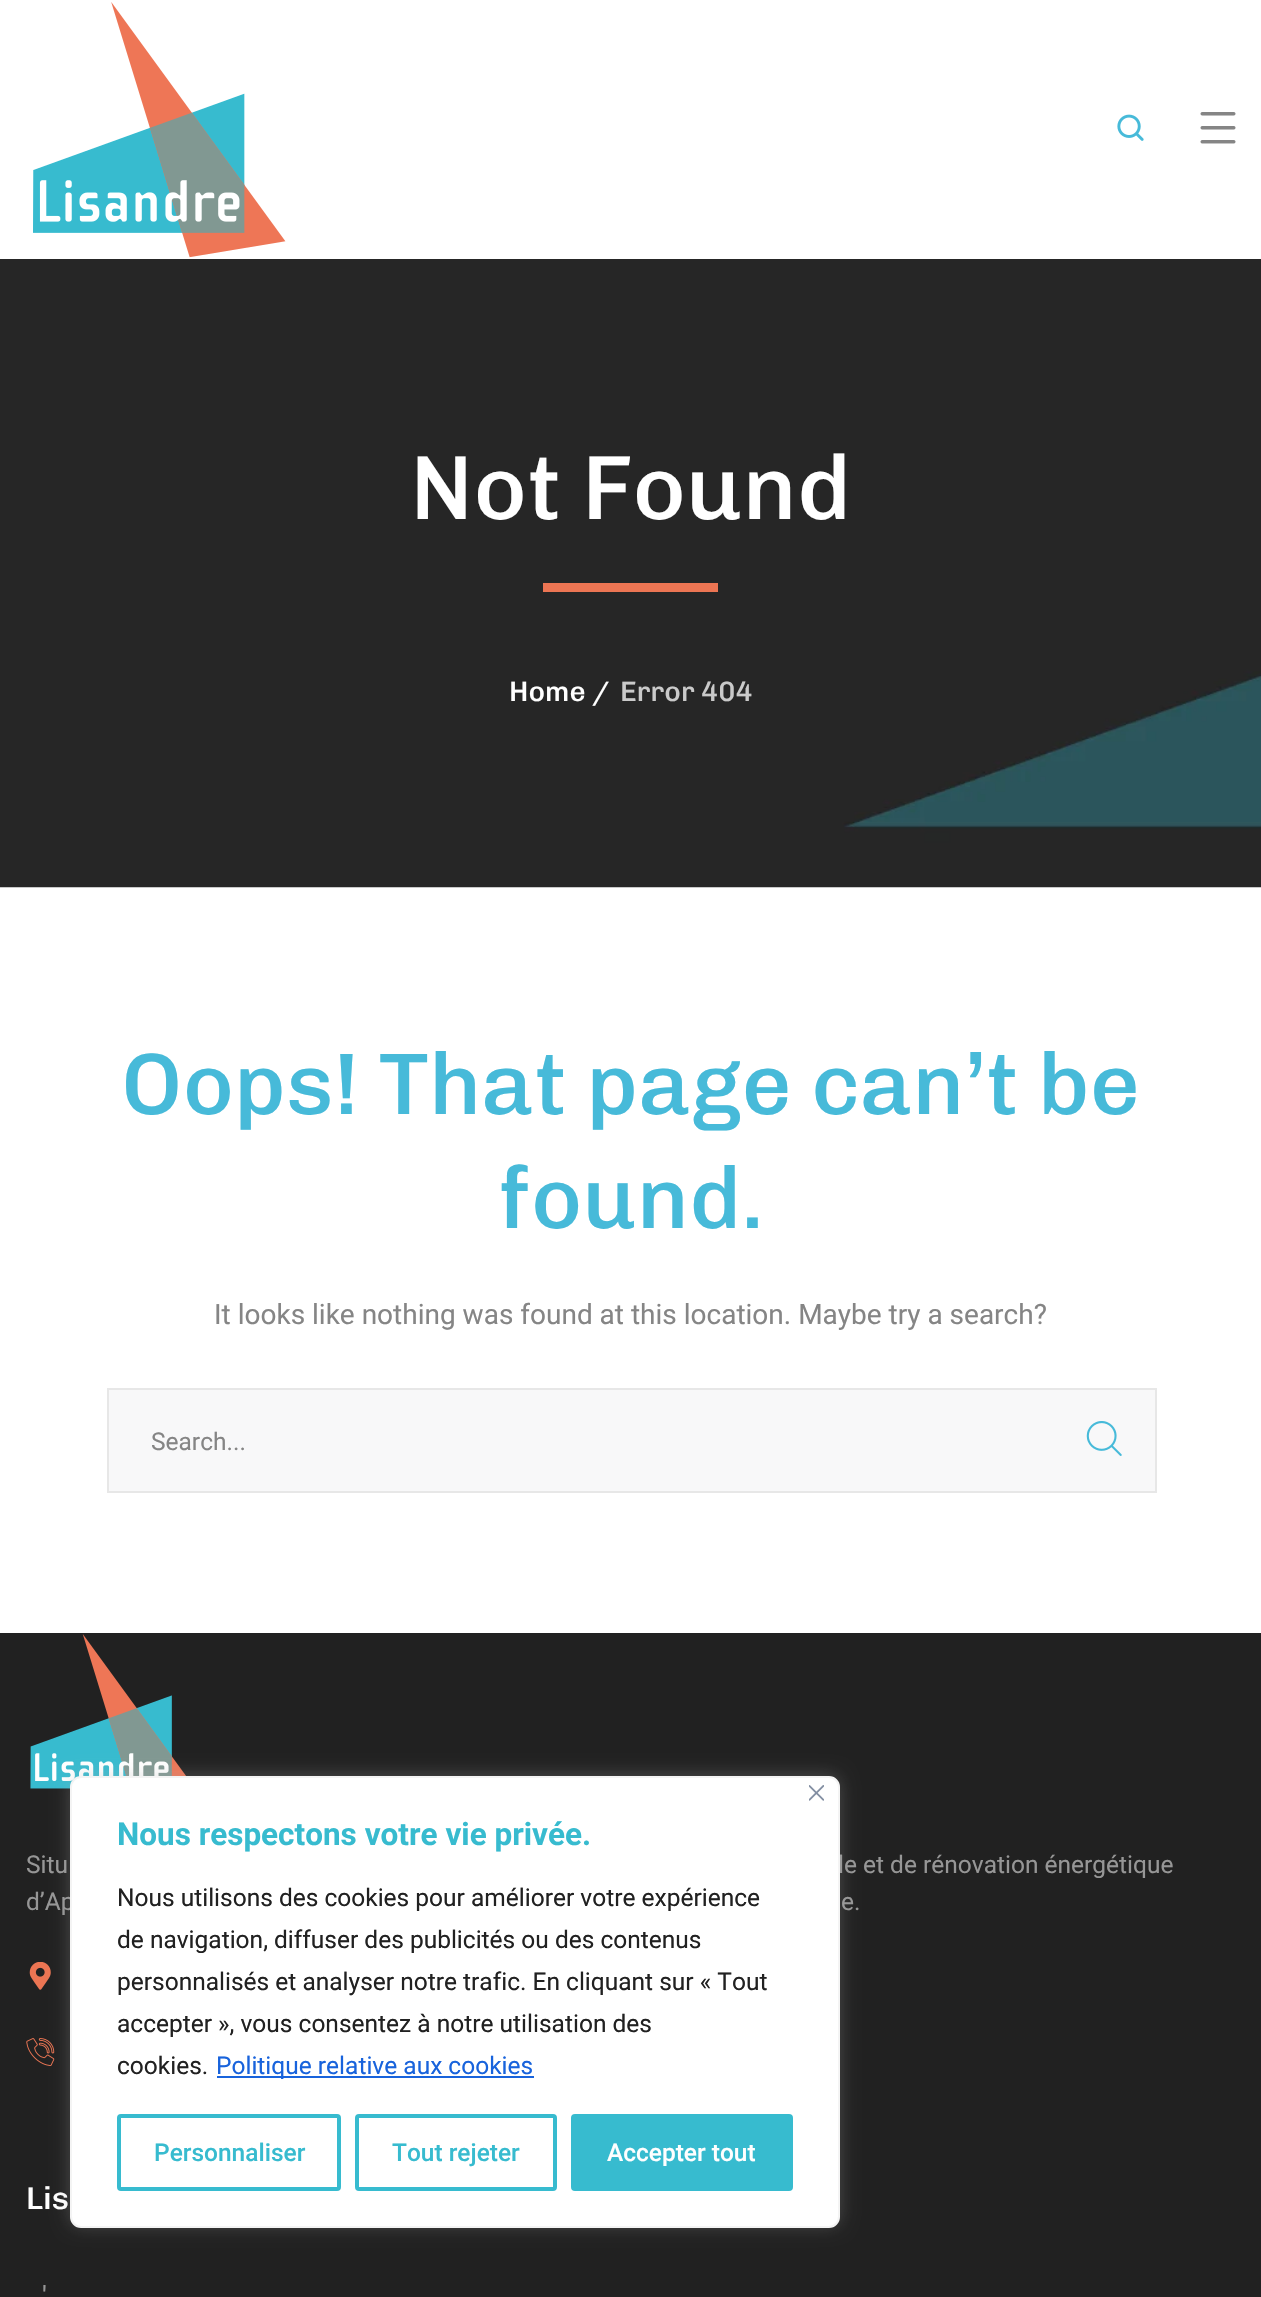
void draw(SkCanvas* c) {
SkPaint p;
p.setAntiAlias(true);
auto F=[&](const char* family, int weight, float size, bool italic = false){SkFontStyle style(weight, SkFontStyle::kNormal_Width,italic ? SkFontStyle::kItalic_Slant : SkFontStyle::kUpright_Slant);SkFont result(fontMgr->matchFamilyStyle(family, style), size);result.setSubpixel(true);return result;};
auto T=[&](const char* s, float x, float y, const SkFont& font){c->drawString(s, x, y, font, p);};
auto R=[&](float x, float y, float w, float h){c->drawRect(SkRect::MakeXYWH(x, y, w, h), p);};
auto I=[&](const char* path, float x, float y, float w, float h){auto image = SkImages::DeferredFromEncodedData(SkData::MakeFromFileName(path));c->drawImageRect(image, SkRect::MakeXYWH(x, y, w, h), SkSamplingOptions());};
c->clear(0xffffffff);
I("1.png",33,2,253,256);
I("2.png",1117,114,27,27);
I("3.png",1200,112,36,32);
I("4.png",0,259,1261,629);
auto f1 = F("Chivo",500,91);
p.setColor(0xffffffff);
T("Not Found",410,519,f1);
p.setColor(0xffec7553);
R(543,583,175,9);
auto f2 = F("Chivo",500,28);
p.setColor(0xffffffff);
T("Home",509,701,f2);
T("/",592,701,f2);
p.setColor(0xffcacaca);
T("Error 404",620,701,f2);
auto f3 = F("Chivo",500,87.5);
p.setColor(0xff47bad9);
T("Oops! That page can’t be",121,1114,f3);
T("found.",498,1228,f3);
auto f4 = F("Roboto",400,28);
p.setColor(0xff858585);
T("It looks like nothing was found at this location. Maybe try a search?",214,1324,f4);
p.setColor(0xfff8f8f9);
c->drawRect(SkRect::MakeXYWH(108,1389,1048,103),p);
p.setStroke(true);
p.setStrokeWidth(2);
p.setColor(0xffe7e7e7);
c->drawRect(SkRect::MakeXYWH(108,1389,1048,103),p);
auto f5 = F("Roboto",400,24.5);
p.setStroke(false);
p.setColor(0xff858585);
T("Search...",151,1450,f5);
I("5.png",1086,1421,36,35);
p.setColor(0xff212121);
R(0,1633,1261,664);
I("6.png",30,1634,156,155);
p.setColor(0xff969696);
T("Situ",26,1873,f5);
T("le et de rénovation énergétique",838,1873,f5);
T("d’Ap",26,1910,f5);
T("e.",841,1910,f5);
I("7.png",29,1962,22,28);
I("8.png",26,2038,29,28);
auto f6 = F("Chivo",500,31.5);
p.setColor(0xffffffff);
T("Lis",26,2209,f6);
p.setColor(0xff969696);
T("'",42,2306,f4);
p.setColor(0x4dacabab);
p.setMaskFilter(SkMaskFilter::MakeBlur(kNormal_SkBlurStyle, 9));
c->drawRoundRect(SkRect::MakeXYWH(70,1775,770,451),11,11,p);
p.setMaskFilter(nullptr);
p.setColor(0xffffffff);
c->drawRoundRect(SkRect::MakeXYWH(71,1777,768,450),10,10,p);
p.setStroke(true);
p.setColor(0xfff4f4f4);
c->drawRoundRect(SkRect::MakeXYWH(71,1777,768,450),10,10,p);
I("9.png",809,1785,15,16);
auto f7 = F("Roboto",700,31.5);
p.setStroke(false);
p.setColor(0xff37bbcf);
T("Nous respectons votre vie privée.",117,1845,f7);
p.setColor(0xff212121);
T("Nous utilisons des cookies pour améliorer votre expérience",117,1906,f5);
T("de navigation, diffuser des publicités ou des contenus",117,1948,f5);
T("personnalisés et analyser notre trafic. En cliquant sur « Tout",117,1990,f5);
T("accepter », vous consentez à notre utilisation des",117,2032,f5);
T("cookies.",117,2074,f5);
p.setColor(0xff1863dc);
R(217,2076,317,2);
T("Politique relative aux cookies",216,2074,f5);
p.setStroke(true);
p.setStrokeWidth(4);
p.setColor(0xff37bbcf);
c->drawRoundRect(SkRect::MakeXYWH(119,2116,220,73),2,2,p);
auto f8 = F("Roboto",500,24.5);
p.setStroke(false);
T("Personnaliser",154,2161,f8);
p.setStroke(true);
c->drawRoundRect(SkRect::MakeXYWH(357,2116,198,73),2,2,p);
p.setStroke(false);
T("Tout rejeter",392,2161,f8);
c->drawRoundRect(SkRect::MakeXYWH(573,2116,218,73),2,2,p);
p.setStroke(true);
c->drawRoundRect(SkRect::MakeXYWH(573,2116,218,73),2,2,p);
p.setStroke(false);
p.setColor(0xffffffff);
T("Accepter tout",607,2161,f8);
}
